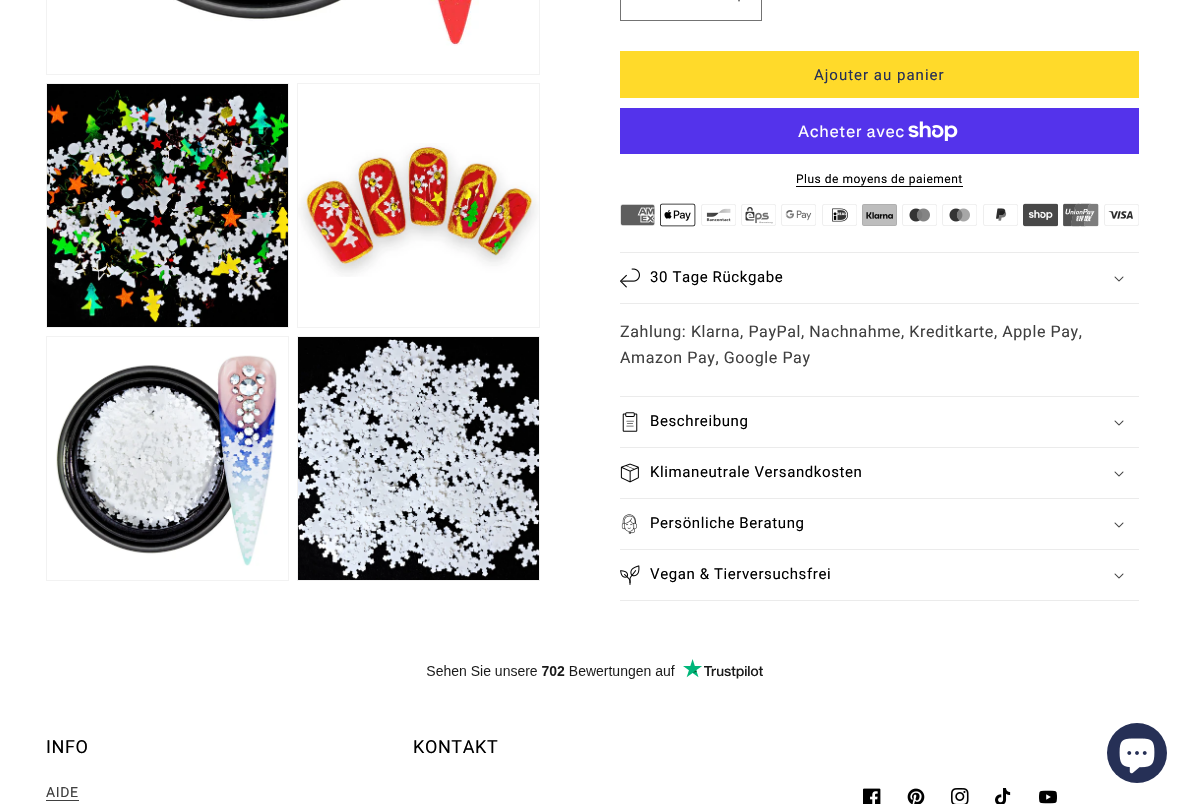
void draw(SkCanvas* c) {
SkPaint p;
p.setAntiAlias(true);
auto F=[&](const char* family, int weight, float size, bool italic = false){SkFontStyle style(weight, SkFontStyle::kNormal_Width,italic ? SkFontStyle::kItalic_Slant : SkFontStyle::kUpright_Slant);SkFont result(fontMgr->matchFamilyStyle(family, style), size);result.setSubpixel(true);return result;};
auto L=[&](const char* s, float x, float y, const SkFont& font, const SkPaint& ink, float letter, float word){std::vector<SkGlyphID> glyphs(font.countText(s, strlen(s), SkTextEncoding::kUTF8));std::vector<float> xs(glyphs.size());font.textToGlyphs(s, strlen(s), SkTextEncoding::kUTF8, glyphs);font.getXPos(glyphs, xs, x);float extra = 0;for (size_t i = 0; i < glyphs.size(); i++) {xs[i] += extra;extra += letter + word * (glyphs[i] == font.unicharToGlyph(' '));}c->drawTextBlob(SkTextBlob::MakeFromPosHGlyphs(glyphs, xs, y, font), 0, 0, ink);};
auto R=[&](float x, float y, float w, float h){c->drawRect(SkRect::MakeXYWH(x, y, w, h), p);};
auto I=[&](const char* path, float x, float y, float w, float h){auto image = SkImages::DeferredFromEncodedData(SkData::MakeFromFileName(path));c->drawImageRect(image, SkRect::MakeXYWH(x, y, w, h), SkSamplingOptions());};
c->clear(0xffffffff);
p.setStroke(true);
p.setStrokeWidth(1);
p.setColor(0xfff2f2f2);
c->drawRect(SkRect::MakeXYWH(46.5,-.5,493,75),p);
I("1.png",173,0,306,46);
c->drawRect(SkRect::MakeXYWH(46.5,83.5,242,244),p);
I("2.png",47,84,241,243);
c->drawRect(SkRect::MakeXYWH(297.5,83.5,242,244),p);
I("3.png",298,143,241,134);
c->drawRect(SkRect::MakeXYWH(46.5,336.5,242,244),p);
I("4.png",56,355,221,211);
c->drawRect(SkRect::MakeXYWH(297.5,336.5,242,244),p);
I("5.png",298,337,241,243);
I("6.png",738,0,2,2);
p.setColor(0xff737373);
c->drawRect(SkRect::MakeXYWH(620.5,-.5,141,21),p);
p.setStroke(false);
p.setColor(0xffffda2a);
R(620,51,519,47);
auto f1 = F("Roboto",400,15);
p.setColor(0xff263056);
L("Ajouter au panier",814,80,f1,p,1,0);
p.setColor(0xff5433eb);
R(620,108,519,46);
auto f2 = F("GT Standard",400,16);
p.setColor(0xffffffff);
L("Acheter avec",798,137,f2,p,.6,0);
I("7.png",908,121,50,20);
auto f3 = F("Roboto",400,12);
p.setColor(0xff000000);
L("Plus de moyens de paiement",796,183,f3,p,.5,0);
R(796,186,167,1);
I("8.png",620,204,35,22);
I("9.png",660,203,36,24);
I("10.png",701,204,35,22);
I("11.png",741,204,35,22);
I("12.png",781,204,35,22);
I("13.png",822,204,35,22);
I("14.png",862,204,35,22);
I("15.png",902,204,35,22);
I("16.png",942,204,35,22);
I("17.png",983,204,35,22);
I("18.png",1023,203,35,24);
I("19.png",1063,203,36,24);
I("20.png",1104,204,35,22);
p.setColor(0xffebebeb);
R(620,252,519,1);
R(620,303,519,1);
I("21.png",620,268,20,20);
p.setColor(0xff000000);
L("30 Tage Rückgabe",650,282,f1,p,.6,0);
I("22.png",1114,276,10,6);
auto f4 = F("Roboto",400,16);
p.setColor(0xff404040);
L("Zahlung: Klarna, PayPal, Nachnahme, Kreditkarte, Apple Pay,",620,337,f4,p,.6,0);
L("Amazon Pay, Google Pay",620,363,f4,p,.6,0);
p.setColor(0xffebebeb);
R(620,396,519,1);
R(620,447,519,1);
I("23.png",622,412,16,20);
p.setColor(0xff000000);
L("Beschreibung",650,426,f1,p,.6,0);
I("22.png",1114,420,10,6);
p.setColor(0xffebebeb);
R(620,498,519,1);
I("24.png",620,463,19,20);
p.setColor(0xff000000);
L("Klimaneutrale Versandkosten",650,477,f1,p,.6,0);
I("22.png",1114,471,10,6);
p.setColor(0xffebebeb);
R(620,549,519,1);
I("25.png",621,514,16,20);
p.setColor(0xff000000);
L("Persönliche Beratung",650,528,f1,p,.6,0);
I("22.png",1114,522,10,6);
p.setColor(0xffebebeb);
R(620,600,519,1);
I("26.png",620,565,20,20);
p.setColor(0xff000000);
L("Vegan & Tierversuchsfrei",650,579,f1,p,.6,0);
I("22.png",1114,573,10,6);
I("27.png",427,659,336,20);
auto f5 = F("Roboto",400,18);
L("INFO",46,753,f5,p,.6,0);
auto f6 = F("Roboto",400,14);
p.setColor(0xff404040);
L("AIDE",46,797,f6,p,.6,0);
R(46,800,33,1);
p.setColor(0xff000000);
L("KONTAKT",413,753,f5,p,.6,0);
I("28.png",863,788,18,16);
I("29.png",907,788,18,16);
I("30.png",951,788,18,16);
I("31.png",995,788,16,16);
I("32.png",1039,790,18,14);
p.setColor(0xff263056);
c->drawCircle(1137,753,30,p);
I("33.png",1119,738,36,36);
}
